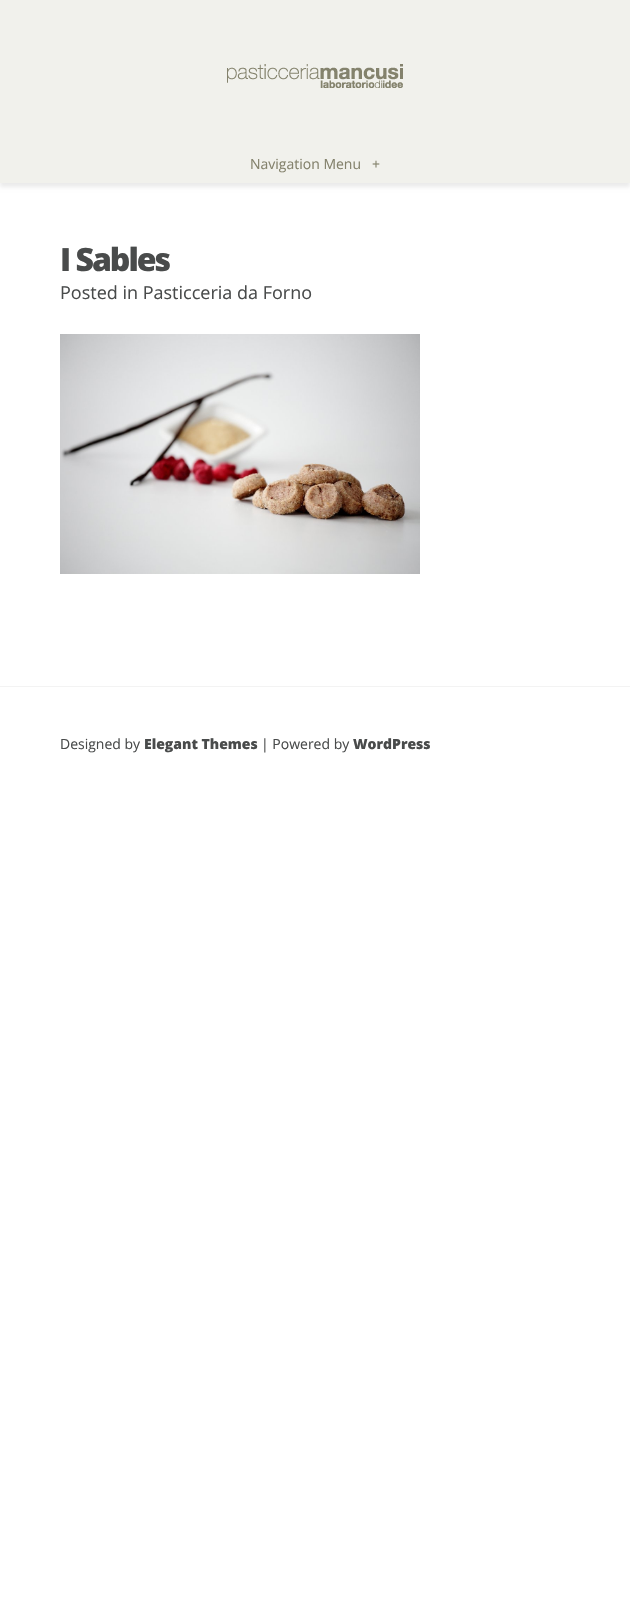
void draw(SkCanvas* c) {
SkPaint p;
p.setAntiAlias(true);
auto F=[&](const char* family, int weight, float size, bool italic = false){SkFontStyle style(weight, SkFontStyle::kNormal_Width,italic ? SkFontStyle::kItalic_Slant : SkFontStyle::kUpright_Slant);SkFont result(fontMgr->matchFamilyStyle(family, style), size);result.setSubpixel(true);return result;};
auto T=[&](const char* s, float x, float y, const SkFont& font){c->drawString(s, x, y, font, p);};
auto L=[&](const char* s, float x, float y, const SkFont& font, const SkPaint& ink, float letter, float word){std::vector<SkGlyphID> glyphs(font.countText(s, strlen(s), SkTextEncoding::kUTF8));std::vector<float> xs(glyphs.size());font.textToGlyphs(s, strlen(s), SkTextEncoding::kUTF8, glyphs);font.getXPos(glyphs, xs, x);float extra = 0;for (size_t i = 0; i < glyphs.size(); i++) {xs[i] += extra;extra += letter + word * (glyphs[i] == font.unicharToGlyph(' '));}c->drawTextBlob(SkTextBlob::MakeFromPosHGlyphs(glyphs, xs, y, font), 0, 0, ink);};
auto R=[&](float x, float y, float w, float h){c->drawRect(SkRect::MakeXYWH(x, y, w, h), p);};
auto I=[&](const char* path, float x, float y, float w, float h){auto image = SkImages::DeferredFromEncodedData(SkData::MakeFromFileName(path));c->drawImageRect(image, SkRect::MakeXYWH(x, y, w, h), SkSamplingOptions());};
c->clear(0xffffffff);
p.setColor(0x14000000);
p.setMaskFilter(SkMaskFilter::MakeBlur(kNormal_SkBlurStyle, 2));
c->drawRect(SkRect::MakeXYWH(0,4,630,183),p);
p.setMaskFilter(nullptr);
p.setColor(0xfff1f1ec);
R(0,0,630,183);
I("1.png",227,64,176,24);
auto f1 = F("Open Sans",400,14);
p.setColor(0xff84826c);
T("Navigation Menu",250,169,f1);
T("+",372,169,f1);
auto f2 = F("Open Sans",800,32);
p.setColor(0xff494b4b);
L("I Sables",60,271,f2,p,-2,0);
auto f3 = F("Open Sans",400,18);
T("Posted in Pasticceria da Forno",60,299,f3);
I("2.png",60,334,360,240);
p.setColor(0xfff3f3f3);
R(0,686,630,1);
p.setColor(0xff494b4b);
T("Designed by",60,749,f1);
auto f4 = F("Open Sans",800,14);
T("Elegant Themes",144,749,f4);
T("| Powered by",261,749,f1);
T("WordPress",353,749,f4);
}
